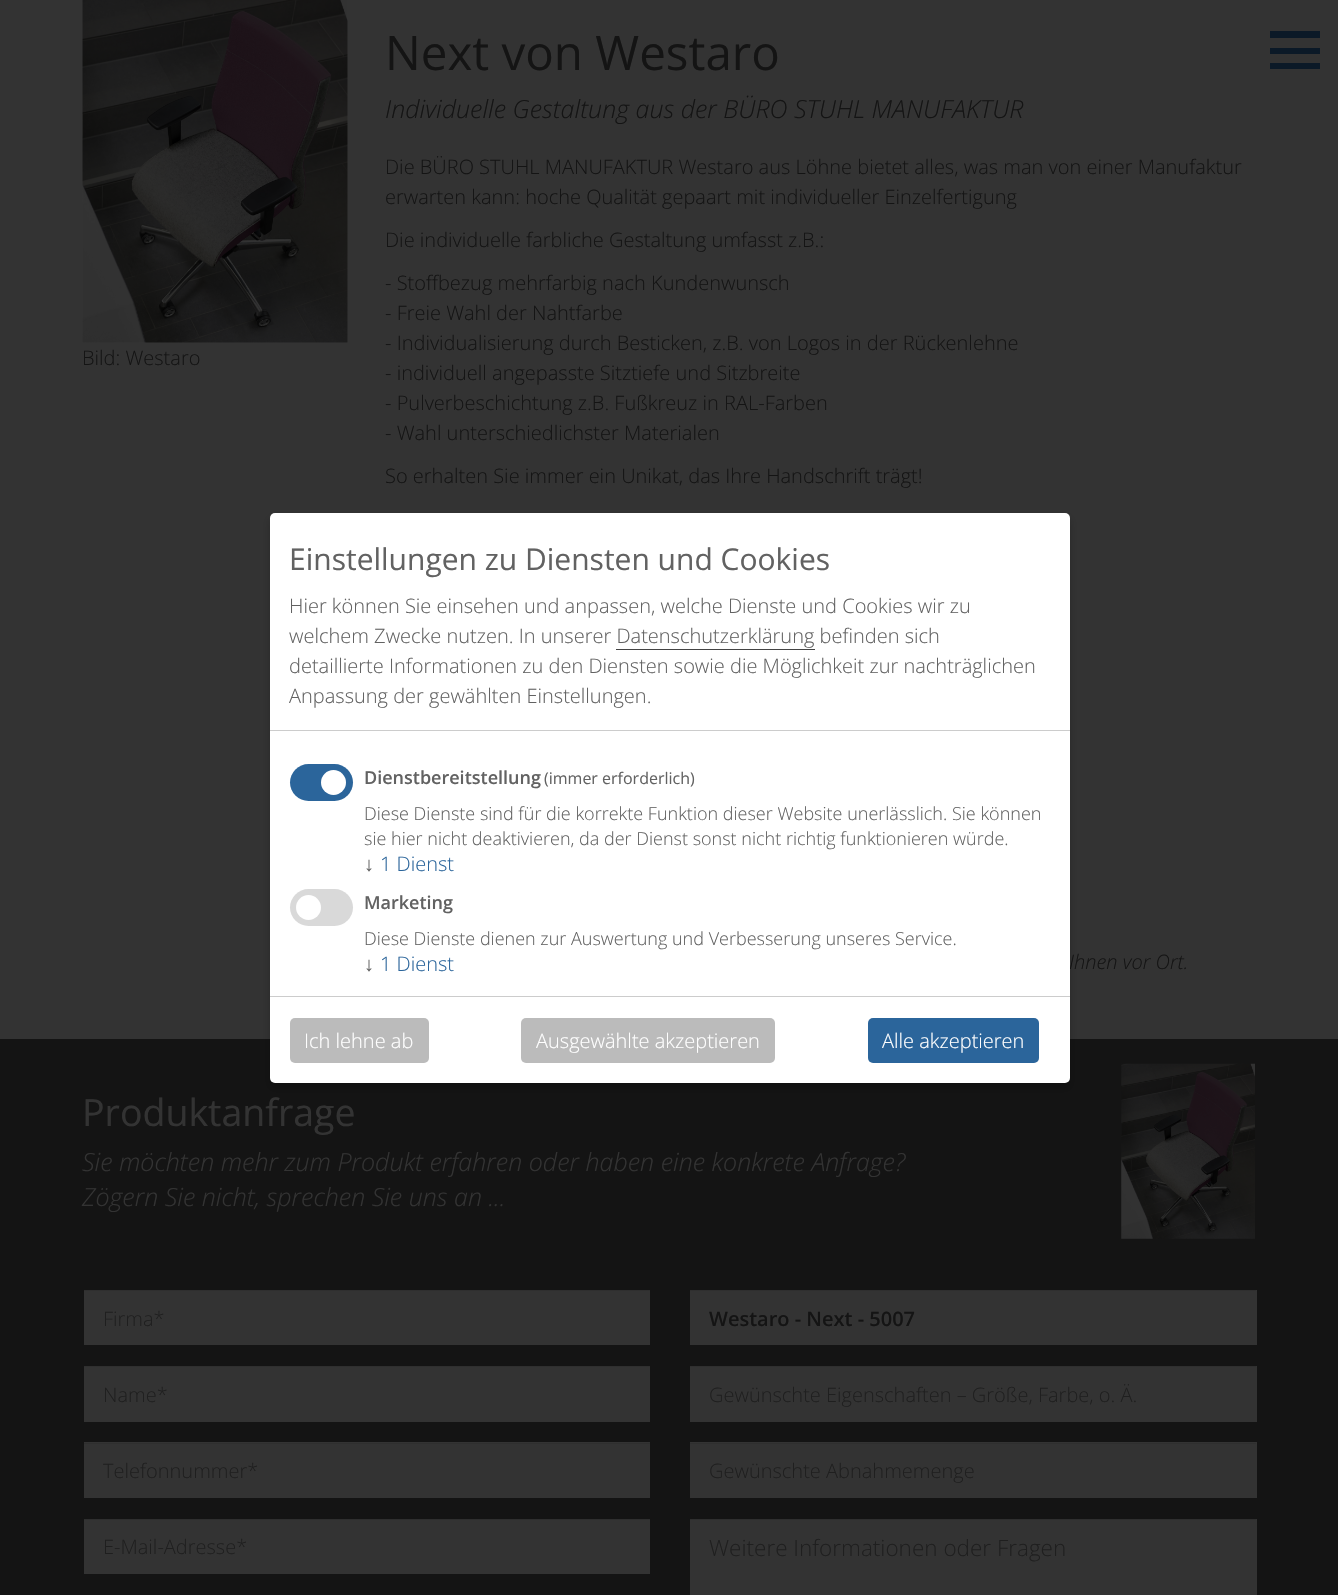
void draw(SkCanvas* c) {
SkPaint p;
p.setAntiAlias(true);
auto F=[&](const char* family, int weight, float size, bool italic = false){SkFontStyle style(weight, SkFontStyle::kNormal_Width,italic ? SkFontStyle::kItalic_Slant : SkFontStyle::kUpright_Slant);SkFont result(fontMgr->matchFamilyStyle(family, style), size);result.setSubpixel(true);return result;};
auto T=[&](const char* s, float x, float y, const SkFont& font){c->drawString(s, x, y, font, p);};
auto R=[&](float x, float y, float w, float h){c->drawRect(SkRect::MakeXYWH(x, y, w, h), p);};
auto Q=[&](float x, float y, float w, float h, float radius){c->drawRoundRect(SkRect::MakeXYWH(x, y, w, h), radius, radius, p);};
auto I=[&](const char* path, float x, float y, float w, float h){auto image = SkImages::DeferredFromEncodedData(SkData::MakeFromFileName(path));c->drawImageRect(image, SkRect::MakeXYWH(x, y, w, h), SkSamplingOptions());};
c->clear(0xff333333);
I("1.png",82,0,266,343);
auto f1 = F("Open Sans",300,20);
p.setColor(0xff141414);
T("Bild: Westaro",82,365,f1);
auto f2 = F("Open Sans",400,47.5);
T("Next von Westaro",385,70,f2);
auto f3 = F("Open Sans",300,25,true);
T("Individuelle Gestaltung aus der BÜRO STUHL MANUFAKTUR",385,118,f3);
T("Die BÜRO STUHL MANUFAKTUR Westaro aus Löhne bietet alles, was man von einer Manufaktur",385,174,f1);
T("erwarten kann: hoche Qualität gepaart mit individueller Einzelfertigung",385,204,f1);
T("Die individuelle farbliche Gestaltung umfasst z.B.:",385,247,f1);
T("- Stoffbezug mehrfarbig nach Kundenwunsch",385,290,f1);
T("- Freie Wahl der Nahtfarbe",385,320,f1);
T("- Individualisierung durch Besticken, z.B. von Logos in der Rückenlehne",385,350,f1);
T("- individuell angepasste Sitztiefe und Sitzbreite",385,380,f1);
T("- Pulverbeschichtung z.B. Fußkreuz in RAL-Farben",385,410,f1);
T("- Wahl unterschiedlichster Materialen",385,440,f1);
T("So erhalten Sie immer ein Unikat, das Ihre Handschrift trägt!",385,483,f1);
auto f4 = F("Open Sans",300,20,true);
T("Ihnen vor Ort.",1069,969,f4);
R(0,1039,1338,556);
auto f5 = F("Open Sans",400,37.5);
p.setColor(0xff333333);
T("Produktanfrage",82,1126,f5);
T("Sie möchten mehr zum Produkt erfahren oder haben eine konkrete Anfrage?",82,1171,f3);
T("Zögern Sie nicht, sprechen Sie uns an ...",82,1206,f3);
I("2.png",1121,1063,134,176);
R(84,1291,566,54);
p.setColor(0xff2f2f2f);
R(84,1290,566,1);
p.setColor(0xff1f1f1f);
T("Firma*",103,1326,f1);
p.setColor(0xff333333);
R(84,1367,566,55);
p.setColor(0xff2f2f2f);
R(84,1366,566,1);
p.setColor(0xff1f1f1f);
T("Name*",103,1402,f1);
p.setColor(0xff333333);
R(84,1442,566,56);
p.setColor(0xff2f2f2f);
R(84,1443,566,1);
p.setColor(0xff1f1f1f);
T("Telefonnummer*",103,1478,f1);
p.setColor(0xff333333);
R(84,1520,566,54);
p.setColor(0xff2f2f2f);
R(84,1519,566,1);
p.setColor(0xff1f1f1f);
T("E-Mail-Adresse*",103,1554,f1);
p.setColor(0xff333333);
R(690,1290,567,55);
p.setColor(0xff2f2f2f);
R(690,1290,566,1);
auto f6 = F("Open Sans",600,20);
p.setColor(0xff141414);
T("Westaro - Next - 5007",709,1326,f6);
p.setColor(0xff333333);
R(690,1366,567,56);
p.setColor(0xff2f2f2f);
R(690,1366,566,1);
p.setColor(0xff1f1f1f);
T("Gewünschte Eigenschaften – Größe, Farbe, o. Ä.",709,1402,f1);
p.setColor(0xff333333);
R(690,1442,567,56);
p.setColor(0xff2f2f2f);
R(690,1443,566,1);
p.setColor(0xff1f1f1f);
T("Gewünschte Abnahmemenge",709,1478,f1);
p.setColor(0xff333333);
R(690,1519,567,76);
p.setColor(0xff2f2f2f);
R(690,1519,566,1);
auto f7 = F("Open Sans",300,22.5);
p.setColor(0xff1f1f1f);
T("Weitere Informationen oder Fragen",709,1556,f7);
p.setColor(0xff0b1927);
R(1270,31,50,7);
R(1270,48,50,6);
R(1270,63,50,6);
p.setColor(0x33000000);
p.setMaskFilter(SkMaskFilter::MakeBlur(kNormal_SkBlurStyle, 4));
c->drawRoundRect(SkRect::MakeXYWH(270,518,800,570),5,5,p);
p.setMaskFilter(nullptr);
p.setColor(0xffffffff);
Q(270,513,800,570,5);
p.setColor(0xffcccccc);
R(270,730,800,1);
auto f8 = F("Open Sans",400,30);
p.setColor(0xff626262);
T("Einstellungen zu Diensten und Cookies",289,570,f8);
T("Hier können Sie einsehen und anpassen, welche Dienste und Cookies wir zu",289,613,f1);
T("welchem Zwecke nutzen. In unserer Datenschutzerklärung befinden sich",289,643,f1);
p.setColor(0xff444444);
R(616,649,199,1);
p.setColor(0xff626262);
T("detaillierte Informationen zu den Diensten sowie die Möglichkeit zur nachträglichen",289,673,f1);
T("Anpassung der gewählten Einstellungen.",289,703,f1);
p.setColor(0xff2b659b);
Q(290,764,63,37,18.5);
p.setColor(0xffffffff);
c->drawCircle(333.5,782.5,12.5,p);
auto f9 = F("Open Sans",600,18);
p.setColor(0xff626262);
T("Dienstbereitstellung",364,784,f9);
auto f10 = F("Open Sans",400,16);
T("(immer erforderlich)",544,784,f10);
auto f11 = F("Open Sans",300,18);
T("Diese Dienste sind für die korrekte Funktion dieser Website unerlässlich. Sie können",364,820,f11);
T("sie hier nicht deaktivieren, da der Dienst sonst nicht richtig funktionieren würde.",364,845,f11);
auto f12 = F("Liberation Sans",400,20);
T("↓",364,871,f12);
p.setColor(0xff2b659b);
T("1 Dienst",380,871,f1);
p.setColor(0xffd9d9d9);
Q(290,889,63,37,18.5);
p.setColor(0xffffffff);
c->drawCircle(308.5,907.5,12.5,p);
p.setColor(0xff626262);
T("Marketing",364,909,f9);
T("Diese Dienste dienen zur Auswertung und Verbesserung unseres Service.",364,945,f11);
T("↓",364,971,f12);
p.setColor(0xff2b659b);
T("1 Dienst",380,971,f1);
p.setColor(0xffcccccc);
R(270,996,800,1);
p.setColor(0xffbbbbbb);
Q(290,1018,139,45,5);
p.setColor(0xffffffff);
T("Ich lehne ab",304,1048,f1);
p.setColor(0xffbbbbbb);
Q(521,1018,254,45,5);
p.setColor(0xffffffff);
T("Ausgewählte akzeptieren",536,1048,f1);
p.setColor(0xff2b659b);
Q(868,1018,171,45,5);
p.setColor(0xffffffff);
T("Alle akzeptieren",882,1048,f1);
}
